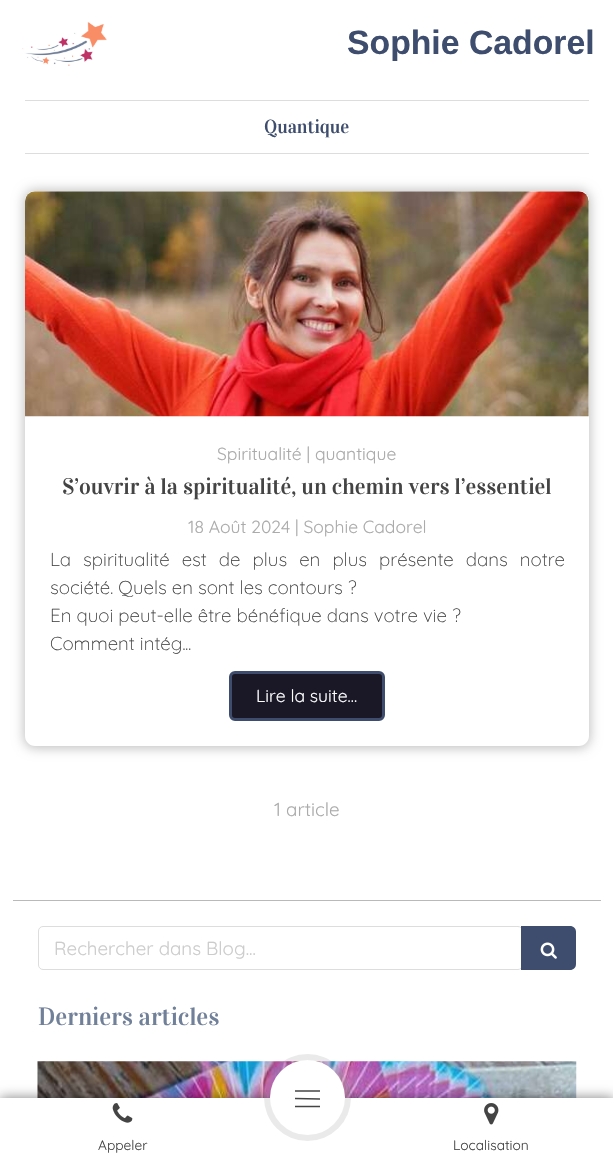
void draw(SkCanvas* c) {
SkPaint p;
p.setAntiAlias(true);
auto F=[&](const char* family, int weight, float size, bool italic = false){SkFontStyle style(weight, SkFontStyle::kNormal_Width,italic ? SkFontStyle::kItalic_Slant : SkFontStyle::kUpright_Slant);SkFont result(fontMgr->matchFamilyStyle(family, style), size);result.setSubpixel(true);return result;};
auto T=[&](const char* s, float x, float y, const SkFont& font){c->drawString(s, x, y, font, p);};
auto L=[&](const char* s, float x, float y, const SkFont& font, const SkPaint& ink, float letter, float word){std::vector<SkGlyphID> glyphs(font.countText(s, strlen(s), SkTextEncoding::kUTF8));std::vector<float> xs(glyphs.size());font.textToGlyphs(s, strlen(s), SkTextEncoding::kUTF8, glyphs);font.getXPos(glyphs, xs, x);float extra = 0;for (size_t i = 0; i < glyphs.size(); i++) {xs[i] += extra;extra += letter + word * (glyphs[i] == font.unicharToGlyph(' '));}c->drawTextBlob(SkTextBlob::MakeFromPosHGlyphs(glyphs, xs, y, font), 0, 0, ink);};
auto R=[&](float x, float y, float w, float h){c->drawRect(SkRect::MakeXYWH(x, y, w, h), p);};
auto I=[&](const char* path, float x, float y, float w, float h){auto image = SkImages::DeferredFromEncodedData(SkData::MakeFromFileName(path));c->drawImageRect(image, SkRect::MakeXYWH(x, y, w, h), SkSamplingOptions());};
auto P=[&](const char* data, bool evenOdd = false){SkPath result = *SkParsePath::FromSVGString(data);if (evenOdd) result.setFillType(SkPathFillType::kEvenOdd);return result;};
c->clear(0xffffffff);
I("1.png",22,22,85,44);
auto f1 = F("Liberation Sans",700,33.75);
p.setColor(0xff3e4d6d);
T("Sophie Cadorel",347,54,f1);
p.setColor(0xffdddddd);
R(25,100,564,1);
R(25,153,564,1);
auto f2 = F("Vidaloka",400,18.75);
p.setColor(0xff3e4d6d);
T("Quantique",264,133,f2);
p.setColor(0xffb9b9b9);
R(13,900,588,1);
c->save();
c->clipPath(P("M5 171h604v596h-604zm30 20h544c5.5 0 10 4.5 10 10v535c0 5.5-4.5 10-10 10h-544c-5.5 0-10-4.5-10-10v-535c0-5.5 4.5-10 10-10z",true),true);
p.setColor(0x40000000);
p.setMaskFilter(SkMaskFilter::MakeBlur(kNormal_SkBlurStyle, 6));
c->drawRoundRect(SkRect::MakeXYWH(24,190,566,558),11,11,p);
p.setMaskFilter(nullptr);
c->restore();
p.setColor(0xfffafafa);
c->drawPath(P("M35 191h544c5.5 0 10 4.5 10 10v215h-564v-215c0-5.5 4.5-10 10-10z"),p);
I("2.png",25,191,564,226);
auto f3 = F("Quicksand",400,17.5);
p.setColor(0xffababab);
T("Spiritualité | quantique",217,460,f3);
auto f4 = F("Vidaloka",400,22.5);
p.setColor(0xff444444);
T("S’ouvrir à la spiritualité, un chemin vers l’essentiel",62,494,f4);
p.setColor(0xffababab);
T("18 Août 2024 | Sophie Cadorel",188,533,f3);
auto f5 = F("Quicksand",300,18.75);
p.setColor(0xff444444);
L("La spiritualité est de plus en plus présente dans notre",50,566,f5,p,0,7);
T("société. Quels en sont les contours ?",50,594,f5);
T("En quoi peut-elle être bénéfique dans votre vie ?",50,622,f5);
T("Comment intég...",50,650,f5);
p.setColor(0xff1a1726);
c->drawRoundRect(SkRect::MakeXYWH(230.5,672.5,153,47),4.5,4.5,p);
p.setStroke(true);
p.setStrokeWidth(3);
p.setColor(0xff3e4d6d);
c->drawRoundRect(SkRect::MakeXYWH(230.5,672.5,153,47),4.5,4.5,p);
p.setStroke(false);
p.setColor(0xffffffff);
T("Lire la suite...",256,702,f3);
auto f6 = F("Quicksand",400,18.75);
p.setColor(0xffababab);
T("1 article",274,816,f6);
p.setStroke(true);
p.setStrokeWidth(1);
p.setColor(0xffdddddd);
c->drawRoundRect(SkRect::MakeXYWH(38.5,926.5,484,43),4.5,4.5,p);
p.setStroke(false);
p.setColor(0xffcccccc);
T("Rechercher dans Blog...",54,955,f6);
p.setColor(0xff3e4d6d);
c->drawPath(P("M521 926h49c3.5 0 6 2.5 6 6v32c0 3.5-2.5 6-6 6h-49z"),p);
I("3.png",540,942,17,17);
auto f7 = F("Vidaloka",400,25);
p.setColor(0xff718099);
T("Derniers articles",38,1025,f7);
I("4.png",37,1061,540,37);
p.setColor(0x80000000);
p.setMaskFilter(SkMaskFilter::MakeBlur(kNormal_SkBlurStyle, 6));
c->drawRect(SkRect::MakeXYWH(0,1098,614,62),p);
p.setMaskFilter(nullptr);
p.setColor(0xffffffff);
R(0,1098,613,62);
p.setColor(0x33969696);
c->drawCircle(307.5,1097.5,43.5,p);
p.setColor(0xffffffff);
c->drawCircle(307.5,1097.5,37.5,p);
p.setColor(0xff737373);
R(295,1090,25,2);
p.setStroke(true);
p.setStrokeWidth(1.5);
p.setColor(0xff444444);
c->drawPath(P("M295 1098.5l25 .5"),p);
c->drawPath(P("M295 1106.5h25"),p);
I("5.png",112,1103,21,20);
auto f8 = F("Quicksand",400,13.75);
p.setStroke(false);
T("Appeler",98,1150,f8);
I("6.png",484,1103,15,22);
T("Localisation",453,1150,f8);
}
